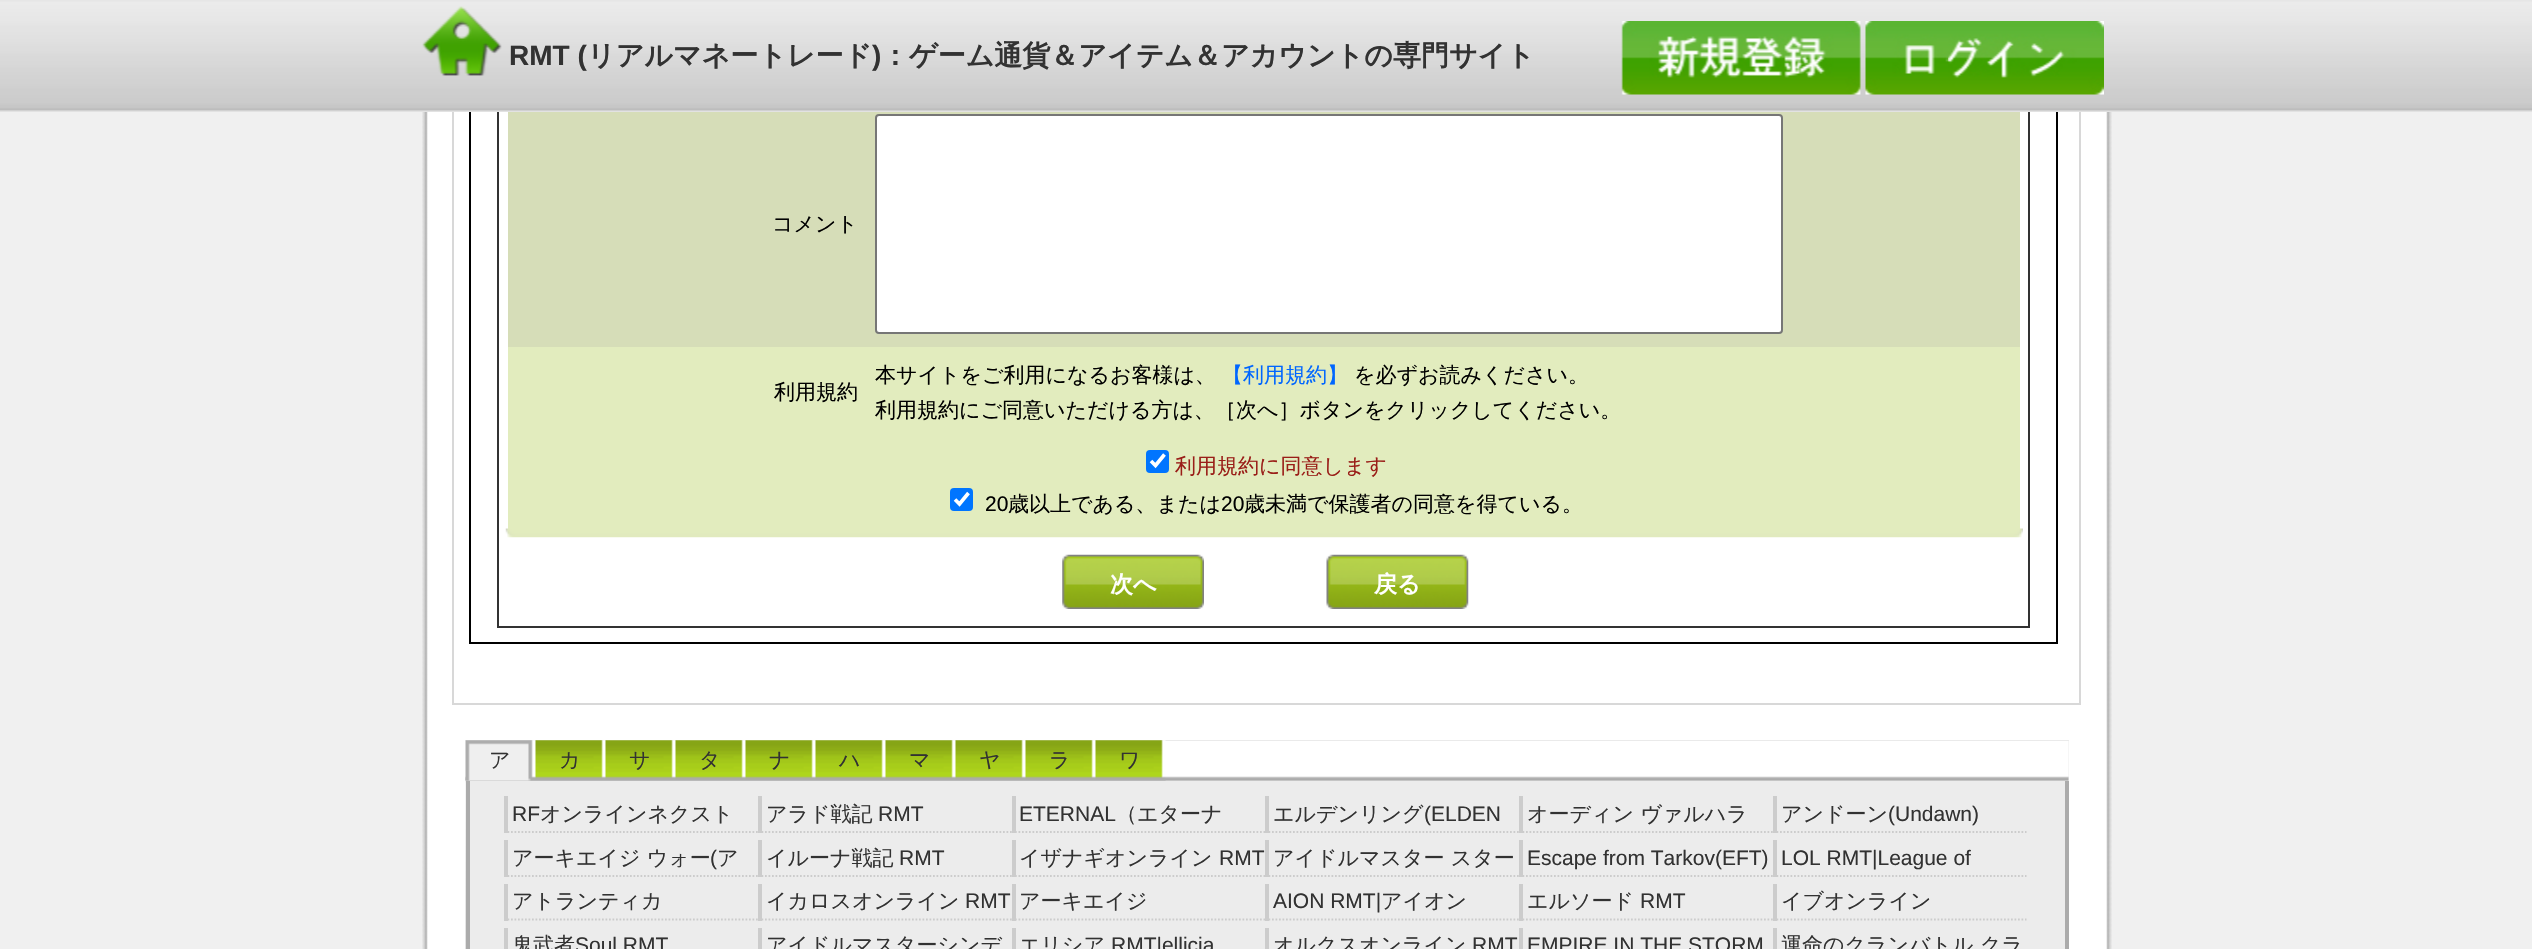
void draw(SkCanvas* c) {
SkPaint p;
p.setAntiAlias(true);
auto F=[&](const char* family, int weight, float size, bool italic = false){SkFontStyle style(weight, SkFontStyle::kNormal_Width,italic ? SkFontStyle::kItalic_Slant : SkFontStyle::kUpright_Slant);SkFont result(fontMgr->matchFamilyStyle(family, style), size);result.setSubpixel(true);return result;};
auto T=[&](const char* s, float x, float y, const SkFont& font){c->drawString(s, x, y, font, p);};
auto R=[&](float x, float y, float w, float h){c->drawRect(SkRect::MakeXYWH(x, y, w, h), p);};
auto Q=[&](float x, float y, float w, float h, float radius){c->drawRoundRect(SkRect::MakeXYWH(x, y, w, h), radius, radius, p);};
auto I=[&](const char* path, float x, float y, float w, float h){auto image = SkImages::DeferredFromEncodedData(SkData::MakeFromFileName(path));c->drawImageRect(image, SkRect::MakeXYWH(x, y, w, h), SkSamplingOptions());};
auto P=[&](const char* data, bool evenOdd = false){SkPath result = *SkParsePath::FromSVGString(data);if (evenOdd) result.setFillType(SkPathFillType::kEvenOdd);return result;};
c->clear(0xfff0f0f0);
I("1.png",422,112,1690,837);
p.setStroke(true);
p.setStrokeWidth(2);
p.setColor(0xffd8d8d8);
c->drawRect(SkRect::MakeXYWH(453,-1,1627,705),p);
p.setColor(0xff000000);
c->drawRect(SkRect::MakeXYWH(470,-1,1587,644),p);
p.setColor(0xff323232);
c->drawRect(SkRect::MakeXYWH(498,-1,1531,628),p);
I("2.png",0,0,2532,112);
I("3.png",422,6,80,70);
auto f1 = F("Liberation Sans",700,28);
p.setStroke(false);
T("RMT (",509,65,f1);
auto f2 = F("WenQuanYi Zen Hei",700,28);
T("リアルマネートレード",587,65,f2);
T(")",872,65,f1);
T("：ゲーム通貨＆アイテム＆アカウントの専門サイト",881,65,f2);
I("4.png",1621,21,240,74);
I("5.png",1865,21,239,74);
p.setColor(0xffd6ddb8);
R(508,112,1512,235);
auto f3 = F("WenQuanYi Zen Hei",500,21);
p.setColor(0xff000000);
T("コメント",772,231,f3);
p.setColor(0xffffffff);
c->drawRoundRect(SkRect::MakeXYWH(876,115,906,218),3,3,p);
p.setStroke(true);
p.setColor(0xff767676);
c->drawRoundRect(SkRect::MakeXYWH(876,115,906,218),3,3,p);
p.setStroke(false);
p.setColor(0xffe2ecbe);
R(508,347,1512,182);
p.setColor(0xff000000);
T("利用規約",774,399,f3);
T("本サイトをご利用になるお客様は、",875,382,f3);
p.setColor(0xff0066ff);
T("【利用規約】",1222,382,f3);
p.setColor(0xff000000);
T("を必ずお読みください。",1354,382,f3);
T("利用規約にご同意いただける方は、［次へ］ボタンをクリックしてください。",875,417,f3);
p.setColor(0xff0075ff);
Q(1146,450,23,23,4);
p.setStroke(true);
p.setStrokeWidth(3.6);
p.setColor(0xffffffff);
c->drawPath(P("M1151 461l4.5 4.5l9-11"),p);
p.setStroke(false);
p.setColor(0xff9a1e18);
T("利用規約に同意します",1175,473,f3);
p.setColor(0xff0075ff);
Q(950,488,23,23,4);
p.setStroke(true);
p.setColor(0xffffffff);
c->drawPath(P("M955 499.5l4.5 4.5l9-11"),p);
auto f4 = F("Liberation Sans",400,21);
p.setStroke(false);
p.setColor(0xff000000);
T("20",985,511,f4);
T("歳以上である、または",1008,511,f3);
T("20",1221,511,f4);
T("歳未満で保護者の同意を得ている。",1244,511,f3);
I("6.png",505,528,1518,10);
I("7.png",1062,554,142,55);
auto f5 = F("WenQuanYi Zen Hei",700,23);
p.setColor(0xffffffff);
T("次へ",1110,592,f5);
I("8.png",1326,554,143,55);
T("戻る",1374,592,f5);
p.setColor(0xffececec);
R(466,740,1603,41);
I("9.png",465,740,1604,209);
I("10.png",465,740,71,41);
p.setColor(0xff323232);
T("ア",489,767,f3);
I("11.png",535,740,71,41);
T("カ",559,767,f3);
I("11.png",605,740,71,41);
T("サ",629,767,f3);
I("11.png",675,740,71,41);
T("タ",699,767,f3);
I("11.png",745,740,71,41);
T("ナ",769,767,f3);
I("11.png",815,740,71,41);
T("ハ",839,767,f3);
I("11.png",885,740,71,41);
T("マ",909,767,f3);
I("11.png",955,740,71,41);
T("ヤ",979,767,f3);
I("11.png",1025,740,71,41);
T("ラ",1049,767,f3);
I("11.png",1095,740,71,41);
T("ワ",1119,767,f3);
p.setColor(0xffececec);
R(470,781,1595,168);
p.setColor(0xffababab);
R(2065,781,4,168);
R(466,781,4,168);
p.setStroke(true);
p.setStrokeWidth(1.8);
p.setColor(0xffcccccc);
p.setPathEffect(SkDashPathEffect::Make({{1.75f,1.75f}}, 0));
c->drawPath(P("M504 832h254"),p);
p.setPathEffect(nullptr);
p.setStroke(false);
R(504,796,4,37);
p.setColor(0xff323232);
T("RF",512,821,f4);
T("オンラインネクスト",540,821,f3);
p.setStroke(true);
p.setColor(0xffcccccc);
p.setPathEffect(SkDashPathEffect::Make({{1.75f,1.75f}}, 0));
c->drawPath(P("M758 832h253.5"),p);
p.setPathEffect(nullptr);
p.setStroke(false);
R(758,796,4,37);
p.setColor(0xff323232);
T("アラド戦記",766,821,f3);
T("RMT",878,821,f4);
p.setStroke(true);
p.setColor(0xffcccccc);
p.setPathEffect(SkDashPathEffect::Make({{1.75f,1.75f}}, 0));
c->drawPath(P("M1011.5 832h253.5"),p);
p.setPathEffect(nullptr);
p.setStroke(false);
R(1012,796,4,37);
p.setColor(0xff323232);
T("ETERNAL",1019,821,f4);
T("（エターナ",1116,821,f3);
p.setStroke(true);
p.setColor(0xffcccccc);
p.setPathEffect(SkDashPathEffect::Make({{1.75f,1.75f}}, 0));
c->drawPath(P("M1265 832h254"),p);
p.setPathEffect(nullptr);
p.setStroke(false);
R(1265,796,4,37);
p.setColor(0xff323232);
T("エルデンリング",1273,821,f3);
T("(ELDEN",1424,821,f4);
p.setStroke(true);
p.setColor(0xffcccccc);
p.setPathEffect(SkDashPathEffect::Make({{1.75f,1.75f}}, 0));
c->drawPath(P("M1519 832h254"),p);
p.setPathEffect(nullptr);
p.setStroke(false);
R(1519,796,4,37);
p.setColor(0xff323232);
T("オーディン ヴァルハラ",1527,821,f3);
p.setStroke(true);
p.setColor(0xffcccccc);
p.setPathEffect(SkDashPathEffect::Make({{1.75f,1.75f}}, 0));
c->drawPath(P("M1773 832h253.5"),p);
p.setPathEffect(nullptr);
p.setStroke(false);
R(1773,796,4,37);
p.setColor(0xff323232);
T("アンドーン",1781,821,f3);
T("(Undawn)",1888,821,f4);
p.setStroke(true);
p.setColor(0xffcccccc);
p.setPathEffect(SkDashPathEffect::Make({{1.75f,1.75f}}, 0));
c->drawPath(P("M504 876h254"),p);
p.setPathEffect(nullptr);
p.setStroke(false);
R(504,840,4,37);
p.setColor(0xff323232);
T("アーキエイジ ウォー",512,865,f3);
T("(",710,865,f4);
T("ア",717,865,f3);
p.setStroke(true);
p.setColor(0xffcccccc);
p.setPathEffect(SkDashPathEffect::Make({{1.75f,1.75f}}, 0));
c->drawPath(P("M758 876h253.5"),p);
p.setPathEffect(nullptr);
p.setStroke(false);
R(758,840,4,37);
p.setColor(0xff323232);
T("イルーナ戦記",766,865,f3);
T("RMT",899,865,f4);
p.setStroke(true);
p.setColor(0xffcccccc);
p.setPathEffect(SkDashPathEffect::Make({{1.75f,1.75f}}, 0));
c->drawPath(P("M1011.5 876h253.5"),p);
p.setPathEffect(nullptr);
p.setStroke(false);
R(1012,840,4,37);
p.setColor(0xff323232);
T("イザナギオンライン",1019,865,f3);
T("RMT",1219,865,f4);
p.setStroke(true);
p.setColor(0xffcccccc);
p.setPathEffect(SkDashPathEffect::Make({{1.75f,1.75f}}, 0));
c->drawPath(P("M1265 876h254"),p);
p.setPathEffect(nullptr);
p.setStroke(false);
R(1265,840,4,37);
p.setColor(0xff323232);
T("アイドルマスター スター",1273,865,f3);
p.setStroke(true);
p.setColor(0xffcccccc);
p.setPathEffect(SkDashPathEffect::Make({{1.75f,1.75f}}, 0));
c->drawPath(P("M1519 876h254"),p);
p.setPathEffect(nullptr);
p.setStroke(false);
R(1519,840,4,37);
p.setColor(0xff323232);
T("Escape from Tarkov(EFT)",1527,865,f4);
p.setStroke(true);
p.setColor(0xffcccccc);
p.setPathEffect(SkDashPathEffect::Make({{1.75f,1.75f}}, 0));
c->drawPath(P("M1773 876h253.5"),p);
p.setPathEffect(nullptr);
p.setStroke(false);
R(1773,840,4,37);
p.setColor(0xff323232);
T("LOL RMT|League of",1781,865,f4);
p.setStroke(true);
p.setColor(0xffcccccc);
p.setPathEffect(SkDashPathEffect::Make({{1.75f,1.75f}}, 0));
c->drawPath(P("M504 919.5h254"),p);
p.setPathEffect(nullptr);
p.setStroke(false);
R(504,884,4,37);
p.setColor(0xff323232);
T("アトランティカ",512,908,f3);
p.setStroke(true);
p.setColor(0xffcccccc);
p.setPathEffect(SkDashPathEffect::Make({{1.75f,1.75f}}, 0));
c->drawPath(P("M758 919.5h253.5"),p);
p.setPathEffect(nullptr);
p.setStroke(false);
R(758,884,4,37);
p.setColor(0xff323232);
T("イカロスオンライン",766,908,f3);
T("RMT",965,908,f4);
p.setStroke(true);
p.setColor(0xffcccccc);
p.setPathEffect(SkDashPathEffect::Make({{1.75f,1.75f}}, 0));
c->drawPath(P("M1011.5 919.5h253.5"),p);
p.setPathEffect(nullptr);
p.setStroke(false);
R(1012,884,4,37);
p.setColor(0xff323232);
T("アーキエイジ",1019,908,f3);
p.setStroke(true);
p.setColor(0xffcccccc);
p.setPathEffect(SkDashPathEffect::Make({{1.75f,1.75f}}, 0));
c->drawPath(P("M1265 919.5h254"),p);
p.setPathEffect(nullptr);
p.setStroke(false);
R(1265,884,4,37);
p.setColor(0xff323232);
T("AION RMT|",1273,908,f4);
T("アイオン",1381,908,f3);
p.setStroke(true);
p.setColor(0xffcccccc);
p.setPathEffect(SkDashPathEffect::Make({{1.75f,1.75f}}, 0));
c->drawPath(P("M1519 919.5h254"),p);
p.setPathEffect(nullptr);
p.setStroke(false);
R(1519,884,4,37);
p.setColor(0xff323232);
T("エルソード",1527,908,f3);
T("RMT",1640,908,f4);
p.setStroke(true);
p.setColor(0xffcccccc);
p.setPathEffect(SkDashPathEffect::Make({{1.75f,1.75f}}, 0));
c->drawPath(P("M1773 919.5h253.5"),p);
p.setPathEffect(nullptr);
p.setStroke(false);
R(1773,884,4,37);
p.setColor(0xff323232);
T("イブオンライン",1781,908,f3);
p.setColor(0xffcccccc);
R(504,928,4,21);
p.setColor(0xff323232);
T("鬼武者",512,952,f3);
T("Soul RMT",575,952,f4);
p.setColor(0xffcccccc);
R(758,928,4,21);
p.setColor(0xff323232);
T("アイドルマスターシンデ",766,952,f3);
p.setColor(0xffcccccc);
R(1012,928,4,21);
p.setColor(0xff323232);
T("エリシア",1019,952,f3);
T("RMT|ellicia",1111,952,f4);
p.setColor(0xffcccccc);
R(1265,928,4,21);
p.setColor(0xff323232);
T("オルクスオンライン",1273,952,f3);
T("RMT",1472,952,f4);
p.setColor(0xffcccccc);
R(1519,928,4,21);
p.setColor(0xff323232);
T("EMPIRE IN THE STORM",1527,952,f4);
p.setColor(0xffcccccc);
R(1773,928,4,21);
p.setColor(0xff323232);
T("運命のクランバトル",1781,952,f3);
T("クラ",1980,952,f3);
}
